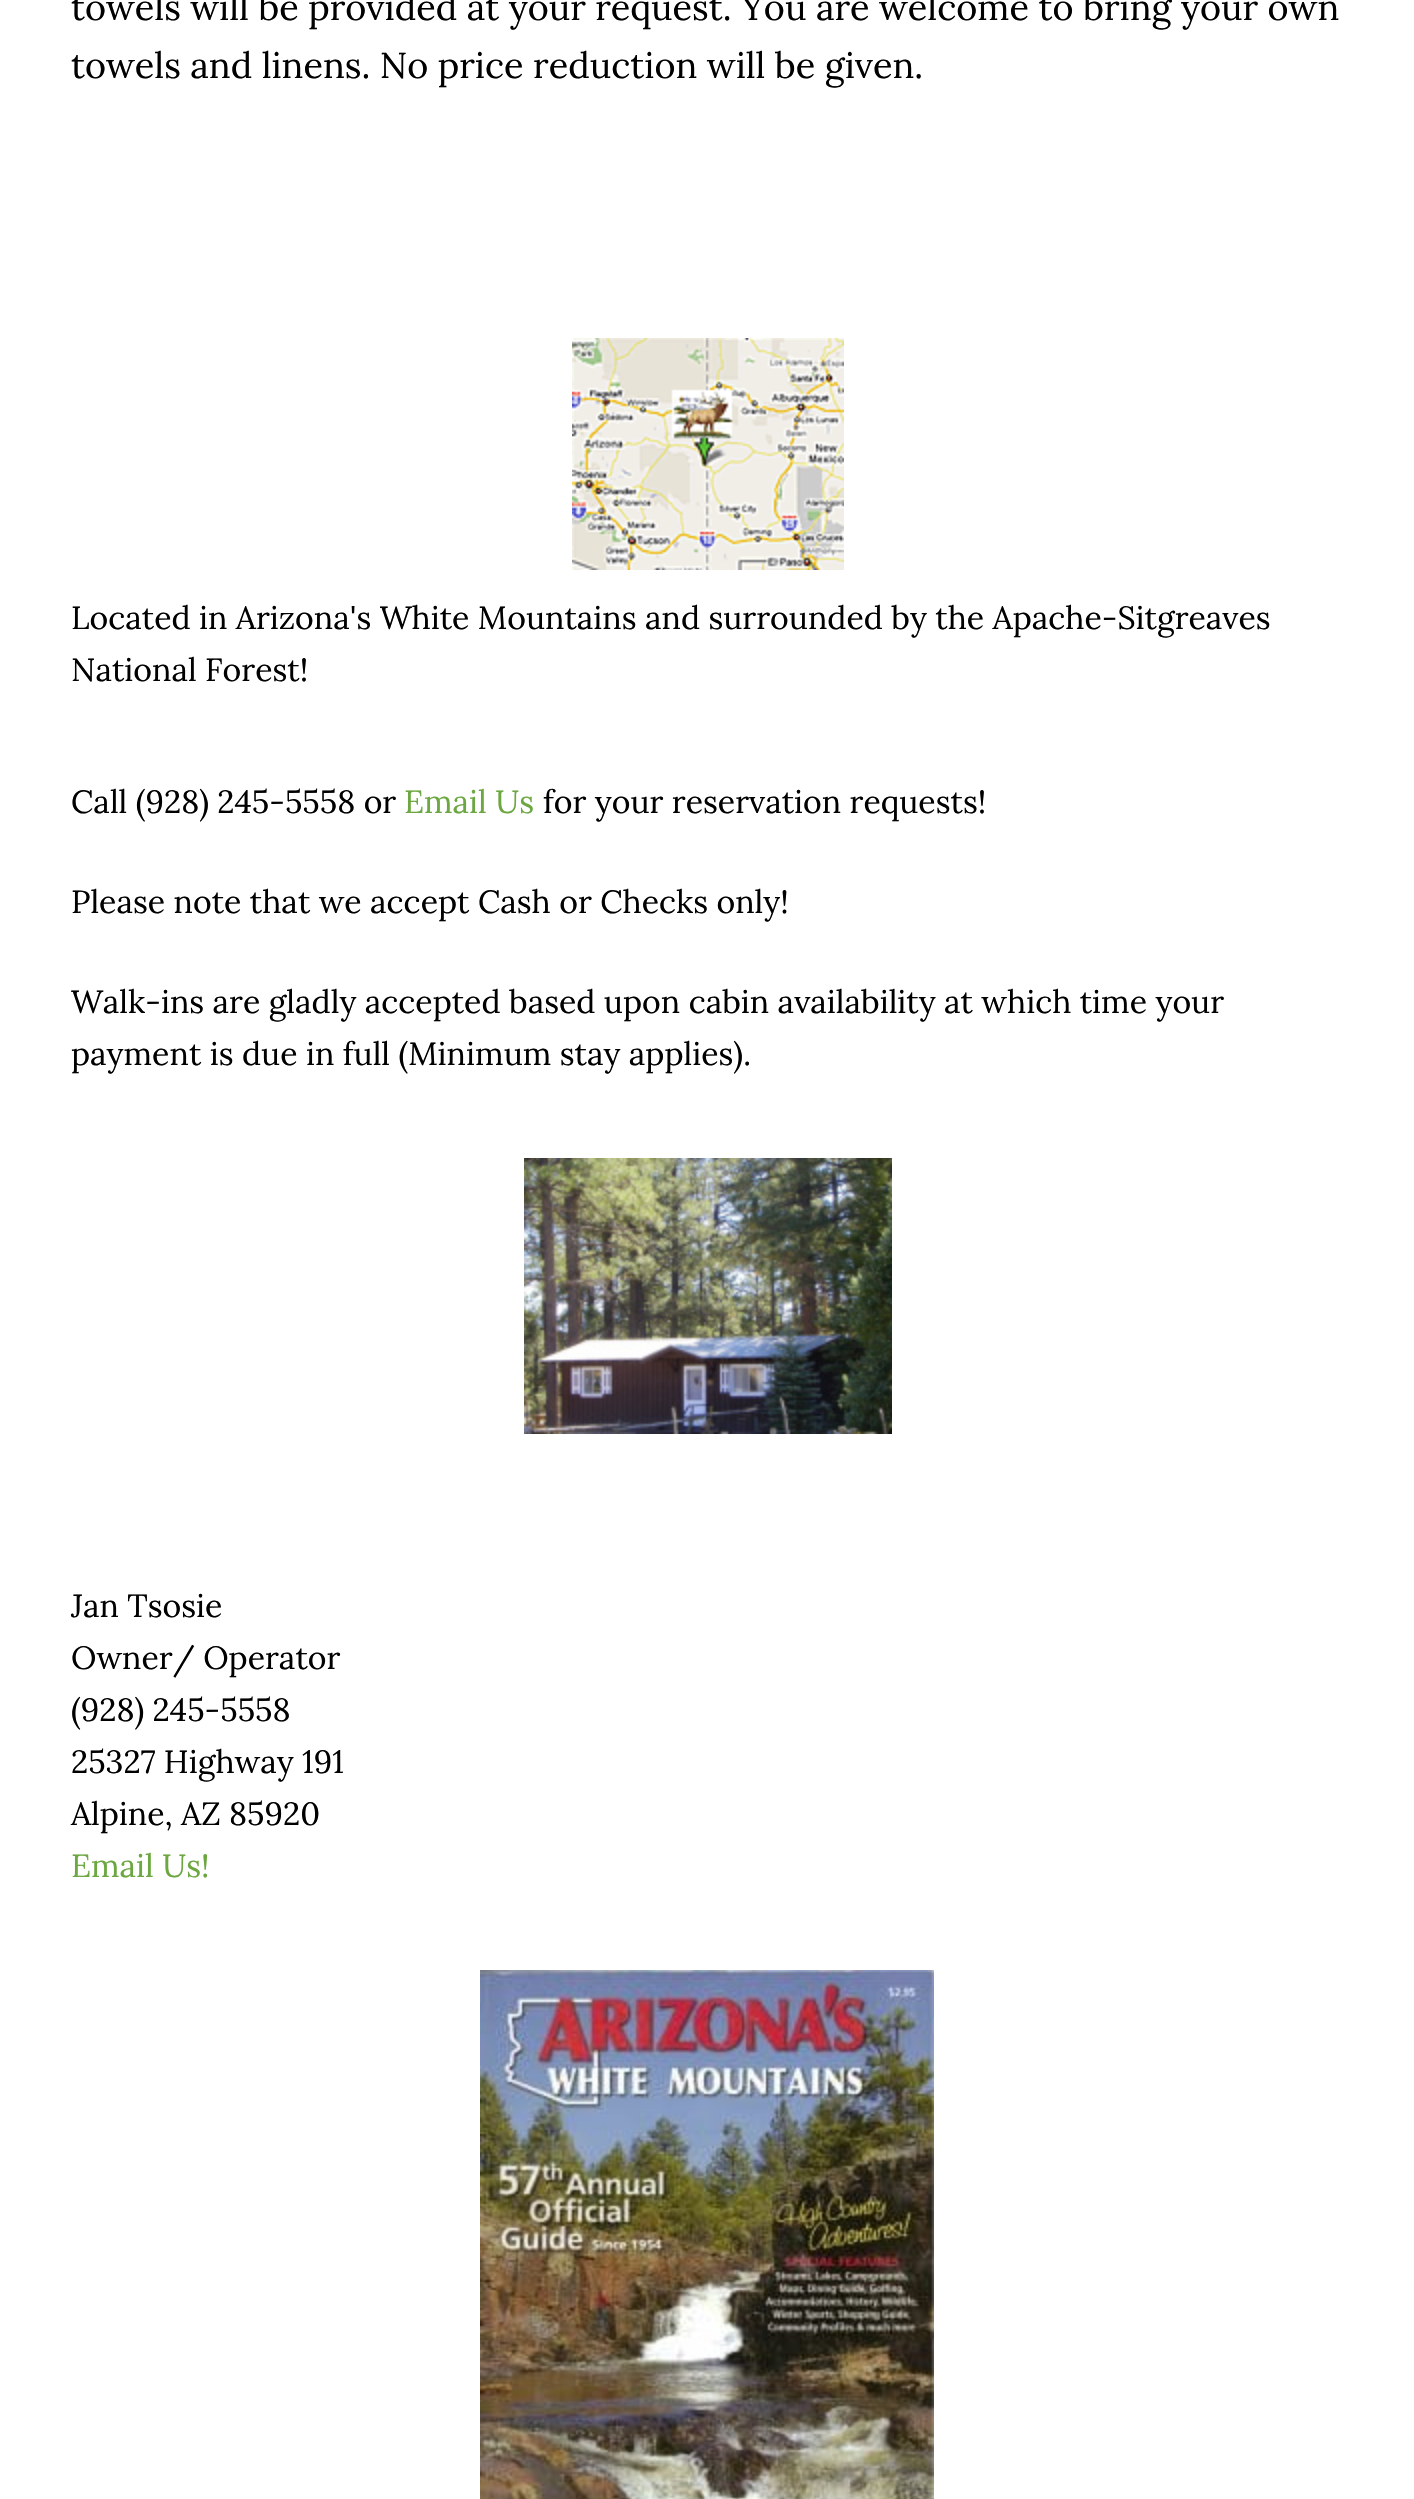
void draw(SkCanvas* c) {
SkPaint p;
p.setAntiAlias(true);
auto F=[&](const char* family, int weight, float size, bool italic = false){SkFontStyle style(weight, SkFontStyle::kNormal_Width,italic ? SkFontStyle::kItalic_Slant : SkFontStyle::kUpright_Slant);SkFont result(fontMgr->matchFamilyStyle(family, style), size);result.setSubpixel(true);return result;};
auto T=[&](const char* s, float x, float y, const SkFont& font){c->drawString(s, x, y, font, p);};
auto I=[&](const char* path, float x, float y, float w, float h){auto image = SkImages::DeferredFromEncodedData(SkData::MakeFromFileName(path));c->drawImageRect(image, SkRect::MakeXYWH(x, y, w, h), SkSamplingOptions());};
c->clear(0xffffffff);
auto f1 = F("Lora",400,36);
p.setColor(0xff000000);
T("towels will be provided at your request. You are welcome to bring your own",71,20,f1);
T("towels and linens. No price reduction will be given.",71,78,f1);
I("1.png",572,338,272,232);
auto f2 = F("Lora",400,32);
T("Located in Arizona's White Mountains and surrounded by the Apache-Sitgreaves",71,629,f2);
T("National Forest!",71,681,f2);
T("Call (928) 245-5558 or",71,813,f2);
p.setColor(0xff6ca741);
T("Email Us",404,813,f2);
p.setColor(0xff000000);
T("for your reservation requests!",543,813,f2);
T("Please note that we accept Cash or Checks only!",71,913,f2);
T("Walk-ins are gladly accepted based upon cabin availability at which time your",71,1013,f2);
T("payment is due in full (Minimum stay applies).",71,1065,f2);
I("2.png",524,1158,368,276);
T("Jan Tsosie",71,1617,f2);
T("Owner/ Operator",71,1669,f2);
T("(928) 245-5558",71,1721,f2);
T("25327 Highway 191",71,1773,f2);
T("Alpine, AZ 85920",71,1825,f2);
p.setColor(0xff6ca741);
T("Email Us!",71,1877,f2);
I("3.png",480,1970,454,529);
}
